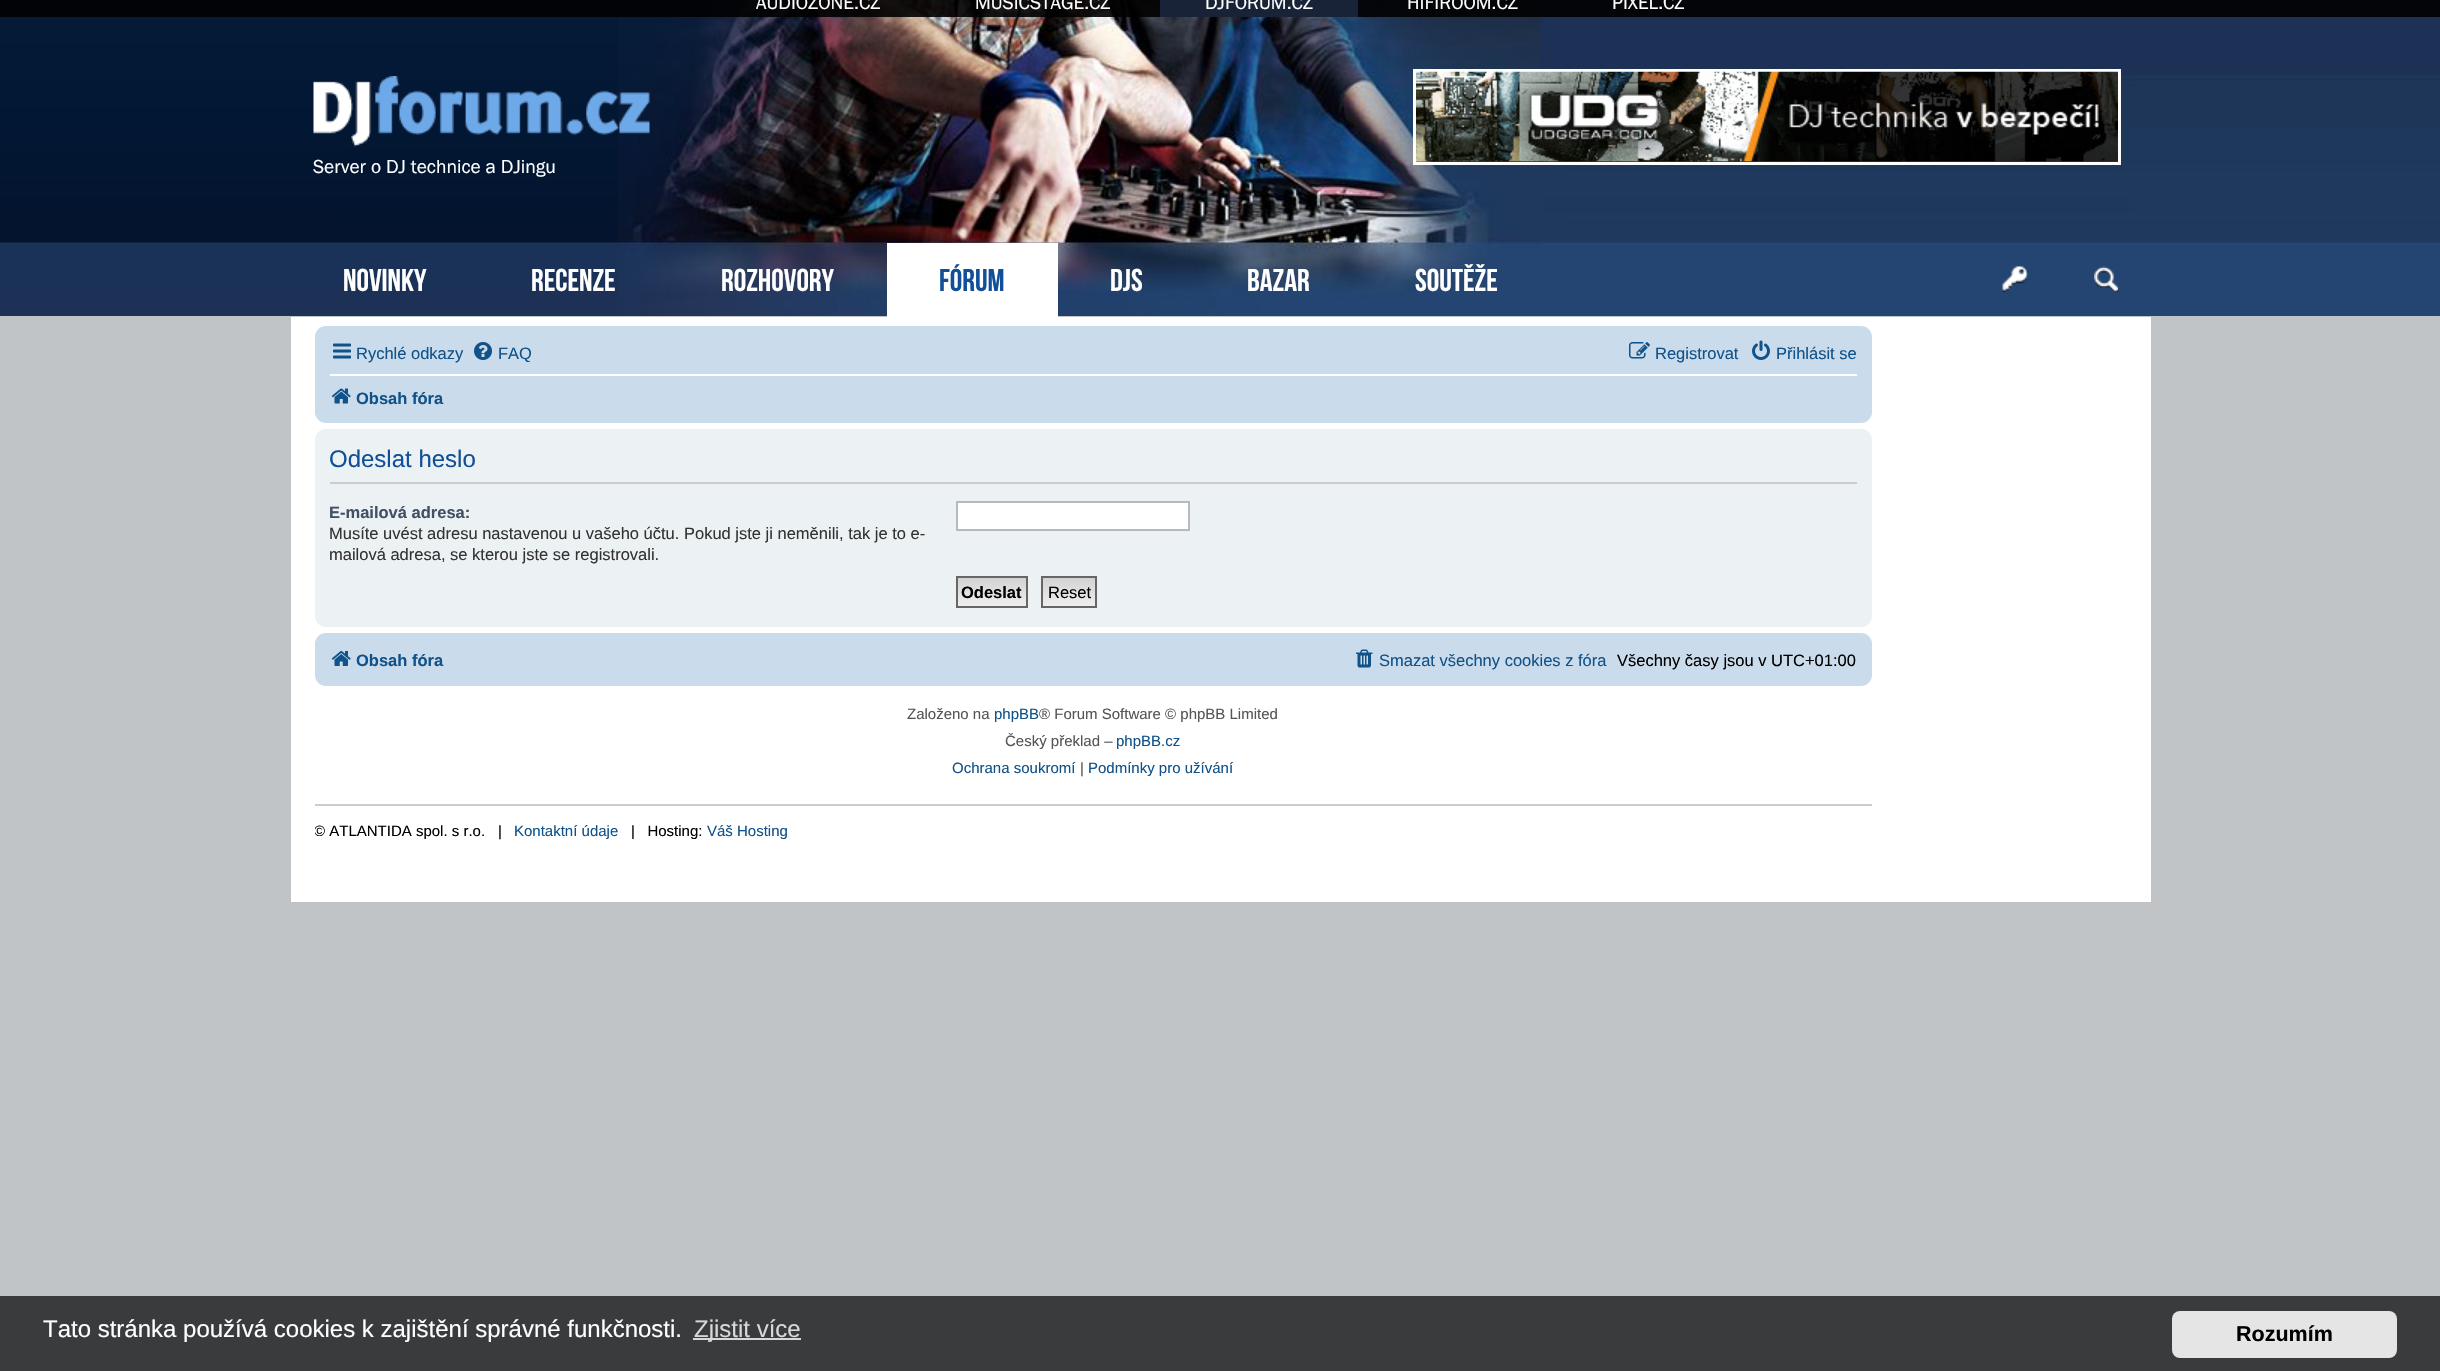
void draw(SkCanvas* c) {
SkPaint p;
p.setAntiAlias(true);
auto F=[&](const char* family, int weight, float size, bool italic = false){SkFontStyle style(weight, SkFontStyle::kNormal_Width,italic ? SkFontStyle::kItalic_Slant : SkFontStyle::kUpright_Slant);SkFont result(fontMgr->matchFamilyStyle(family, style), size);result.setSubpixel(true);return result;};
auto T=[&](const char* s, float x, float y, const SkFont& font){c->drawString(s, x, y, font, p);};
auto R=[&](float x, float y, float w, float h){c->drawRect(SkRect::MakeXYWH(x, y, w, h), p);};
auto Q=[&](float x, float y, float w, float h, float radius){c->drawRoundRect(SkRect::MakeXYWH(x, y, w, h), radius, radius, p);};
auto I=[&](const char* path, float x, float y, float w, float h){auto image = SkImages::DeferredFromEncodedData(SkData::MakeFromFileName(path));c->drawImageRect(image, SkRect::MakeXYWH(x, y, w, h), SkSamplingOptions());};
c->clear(0xffc0c4c7);
I("1.png",0,0,2440,316);
I("2.png",618,0,923,316);
p.setColor(0xe6000000);
R(0,0,2440,17);
auto f1 = F("Franklin Gothic",400,19.5);
p.setColor(0xffffffff);
T("AUDIOZONE.CZ",756,9,f1);
T("MUSICSTAGE.CZ",975,9,f1);
p.setColor(0xff182338);
R(1160,0,198,17);
p.setColor(0xffffffff);
T("DJFORUM.CZ",1205,9,f1);
T("HIFIROOM.CZ",1407,9,f1);
T("PIXEL.CZ",1612,9,f1);
p.setStroke(true);
p.setStrokeWidth(3);
c->drawRect(SkRect::MakeXYWH(1414.5,70.5,705,93),p);
I("3.png",1416,71,702,91);
I("4.png",313,76,337,71);
p.setStroke(false);
T("Server o DJ technice a DJingu",313,173,f1);
auto f2 = F("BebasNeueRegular",400,31.5);
T("NOVINKY",343,291,f2);
T("RECENZE",531,291,f2);
T("ROZHOVORY",721,291,f2);
R(887,243,171,74);
p.setColor(0xff115098);
T("FÓRUM",939,291,f2);
p.setColor(0xffffffff);
T("DJS",1110,291,f2);
T("BAZAR",1247,291,f2);
T("SOUTĚŽE",1415,291,f2);
I("5.png",2002,266,26,26);
I("6.png",2094,266,24,28);
R(291,317,1860,585);
p.setColor(0xffcadceb);
Q(315,326,1557,97,11);
I("7.png",333,343,18,16);
auto f3 = F("Liberation Sans",400,16.5);
p.setColor(0xff105289);
T("Rychlé odkazy",356,359,f3);
I("8.png",474,342,18,18);
T("FAQ",498,359,f3);
I("9.png",1629,342,21,17);
T("Registrovat",1655,359,f3);
I("10.png",1752,340,18,20);
T("Přihlásit se",1776,359,f3);
p.setColor(0xffffffff);
R(330,374,1527,2);
I("11.png",331,388,20,16);
auto f4 = F("Liberation Sans",700,16.5);
p.setColor(0xff105289);
T("Obsah fóra",356,404,f4);
p.setColor(0xffecf1f3);
Q(315,429,1557,198,11);
p.setColor(0xffcccccc);
R(330,482,1527,2);
auto f5 = F("Liberation Sans",400,24);
p.setColor(0xff115098);
T("Odeslat heslo",329,467,f5);
p.setColor(0xff425067);
T("E-mailová adresa:",329,518,f4);
p.setColor(0xff333333);
T("Musíte uvést adresu nastavenou u vašeho účtu. Pokud jste ji neměnili, tak je to e-",329,539,f3);
T("mailová adresa, se kterou jste se registrovali.",329,560,f3);
p.setColor(0xffffffff);
c->drawRect(SkRect::MakeXYWH(957,502,232,28),p);
p.setStroke(true);
p.setStrokeWidth(2);
p.setColor(0xffb4bac0);
c->drawRect(SkRect::MakeXYWH(957,502,232,28),p);
p.setStroke(false);
{
const SkColor colors[] = {0xffd2d2d2,0xffefefef};
const float stops[] = {0,1};
const SkPoint ends[] = {{992,578}, {992,606}};
p.setShader(SkGradientShader::MakeLinear(ends, colors, stops, 2, SkTileMode::kClamp));
p.setAlpha(255);
}
R(958,578,68,28);
p.setStroke(true);
p.setShader(nullptr);
p.setColor(0xff666666);
c->drawRect(SkRect::MakeXYWH(957,577,70,30),p);
p.setStroke(false);
p.setColor(0xff000000);
T("Odeslat",961,598,f4);
{
const SkColor colors[] = {0xffd2d2d2,0xffefefef};
const float stops[] = {0,1};
const SkPoint ends[] = {{1069,578}, {1069,606}};
p.setShader(SkGradientShader::MakeLinear(ends, colors, stops, 2, SkTileMode::kClamp));
p.setAlpha(255);
}
R(1043,578,52,28);
p.setStroke(true);
p.setShader(nullptr);
p.setColor(0xff666666);
c->drawRect(SkRect::MakeXYWH(1042,577,54,30),p);
p.setStroke(false);
p.setColor(0xff000000);
T("Reset",1048,598,f3);
p.setColor(0xffcadceb);
Q(315,633,1557,53,11);
I("12.png",331,651,20,15);
p.setColor(0xff105289);
T("Obsah fóra",356,666,f4);
I("13.png",1356,649,17,19);
T("Smazat všechny cookies z fóra",1379,666,f3);
p.setColor(0xff000000);
T("Všechny časy jsou v UTC+01:00",1617,666,f3);
auto f6 = F("Liberation Sans",400,15);
p.setColor(0xff555555);
T("Založeno na",907,719,f6);
p.setColor(0xff105289);
T("phpBB",994,719,f6);
p.setColor(0xff555555);
T("® Forum Software © phpBB Limited",1039,719,f6);
T("Český překlad –",1005,746,f6);
p.setColor(0xff105289);
T("phpBB.cz",1116,746,f6);
T("Ochrana soukromí",952,773,f6);
p.setColor(0xff555555);
T("|",1080,773,f6);
p.setColor(0xff105289);
T("Podmínky pro užívání",1088,773,f6);
p.setColor(0xffcccccc);
R(315,804,1557,2);
c->save();
c->clipRect(SkRect::MakeXYWH(315,822,1557,17));
p.setColor(0xff000000);
T("© ATLANTIDA spol. s r.o.",314,836,f6);
c->restore();
T("|",498,836,f6);
p.setColor(0xff105289);
T("Kontaktní údaje",514,836,f6);
c->save();
c->clipRect(SkRect::MakeXYWH(315,822,1557,17));
p.setColor(0xff000000);
T("|   Hosting:",631,836,f6);
c->restore();
p.setColor(0xff105289);
T("Váš Hosting",707,836,f6);
p.setColor(0xff3a3b3c);
R(0,1296,2440,75);
p.setColor(0xffffffff);
T("Tato stránka používá cookies k zajištění správné funkčnosti.",43,1337,f5);
p.setColor(0xffd8d8d8);
R(693,1338,108,2);
T("Zjistit více",694,1337,f5);
p.setColor(0xffe5e5e5);
Q(2172,1311,225,47,8);
auto f7 = F("Liberation Sans",700,21.5);
p.setColor(0xff000000);
T("Rozumím",2236,1341,f7);
}
